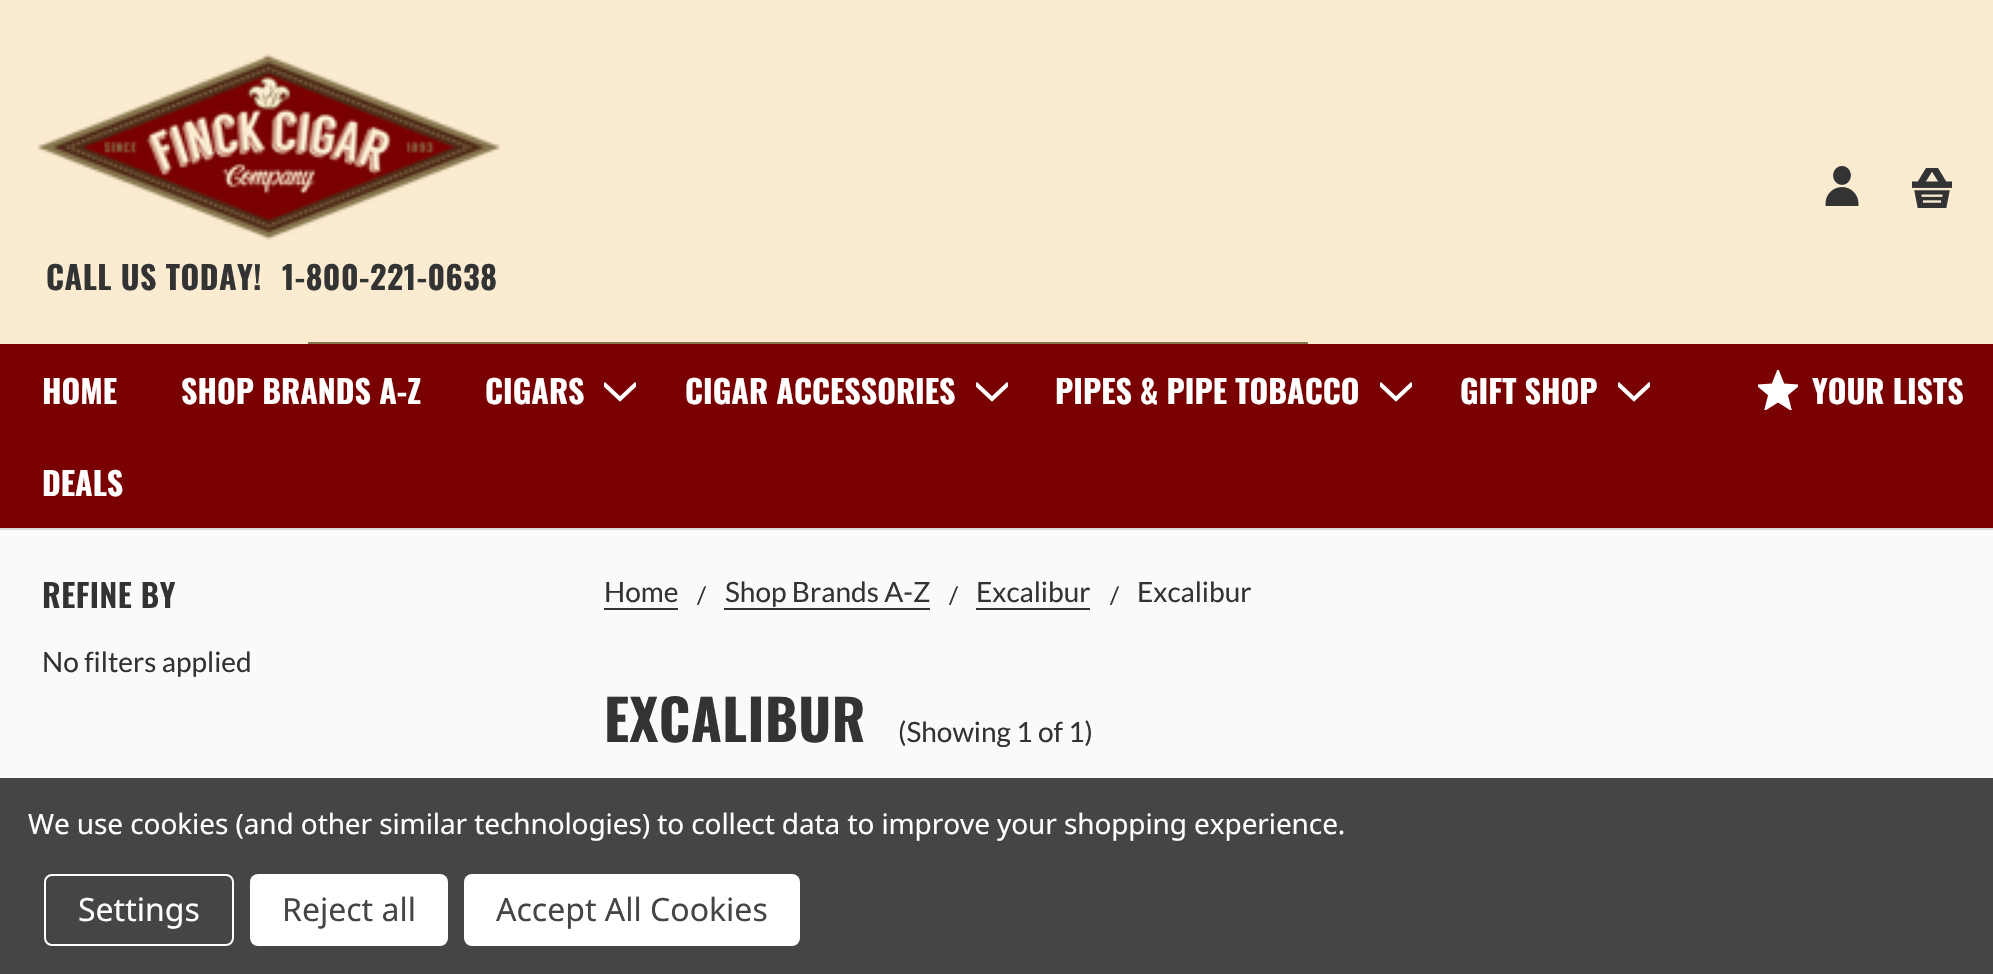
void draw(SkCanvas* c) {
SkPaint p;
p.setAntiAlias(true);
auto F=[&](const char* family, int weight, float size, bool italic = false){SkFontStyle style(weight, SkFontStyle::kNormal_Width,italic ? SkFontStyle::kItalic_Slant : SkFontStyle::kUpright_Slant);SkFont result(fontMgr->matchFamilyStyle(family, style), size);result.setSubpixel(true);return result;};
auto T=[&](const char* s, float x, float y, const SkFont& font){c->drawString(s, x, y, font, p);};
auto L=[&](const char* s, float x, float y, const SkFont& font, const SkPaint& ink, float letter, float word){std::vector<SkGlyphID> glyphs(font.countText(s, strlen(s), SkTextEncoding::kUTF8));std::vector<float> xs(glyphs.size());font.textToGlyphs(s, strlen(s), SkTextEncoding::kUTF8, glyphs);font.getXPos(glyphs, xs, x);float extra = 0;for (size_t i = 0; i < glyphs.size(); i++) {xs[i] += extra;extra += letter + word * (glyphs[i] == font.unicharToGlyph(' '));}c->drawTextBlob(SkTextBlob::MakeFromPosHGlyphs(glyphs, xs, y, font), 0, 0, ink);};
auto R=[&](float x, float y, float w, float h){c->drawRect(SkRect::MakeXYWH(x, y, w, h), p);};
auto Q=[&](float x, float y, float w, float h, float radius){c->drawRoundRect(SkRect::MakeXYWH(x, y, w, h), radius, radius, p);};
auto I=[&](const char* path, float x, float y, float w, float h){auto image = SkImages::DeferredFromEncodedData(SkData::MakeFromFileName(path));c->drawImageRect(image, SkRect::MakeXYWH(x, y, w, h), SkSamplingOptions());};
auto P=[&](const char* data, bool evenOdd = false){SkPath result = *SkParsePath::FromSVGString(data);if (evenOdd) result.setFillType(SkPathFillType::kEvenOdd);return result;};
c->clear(0xfffafafa);
p.setColor(0xfffaebd1);
R(0,0,1993,344);
p.setColor(0xffd9d9d9);
R(0,528,1993,2);
I("1.png",1825,166,34,40);
I("2.png",1912,168,40,40);
I("3.png",37,54,464,187);
auto f1 = F("Oswald",700,32);
p.setColor(0xff333333);
L("CALL US TODAY!",46,290,f1,p,.5,0);
L("1-800-221-0638",282,290,f1,p,.5,0);
p.setStroke(true);
p.setStrokeWidth(2);
p.setColor(0xff86764d);
c->drawRect(SkRect::MakeXYWH(309,343,998,82),p);
c->drawPath(P("M1205 343h99c1.5 0 3 1.5 3 3v76c0 1.5-1.5 3-3 3h-99z"),p);
p.setStroke(false);
p.setColor(0xff7a0101);
R(0,344,1993,184);
p.setColor(0xffffffff);
T("HOME",42,404,f1);
T("SHOP BRANDS A-Z",181,404,f1);
T("CIGARS",485,404,f1);
c->save();
c->clipRect(SkRect::MakeXYWH(604,376,32,32));
p.setStroke(true);
p.setStrokeWidth(2.7);
c->drawPath(P("M620 398l15-14l1 1l-16 15l-16-15l1-1z"),p);
c->restore();
p.setStroke(false);
T("CIGAR ACCESSORIES",685,404,f1);
c->save();
c->clipRect(SkRect::MakeXYWH(976,376,32,32));
p.setStroke(true);
c->drawPath(P("M992 398l15-14l1 1l-16 15l-16-15l1-1z"),p);
c->restore();
p.setStroke(false);
T("PIPES & PIPE TOBACCO",1055,404,f1);
c->save();
c->clipRect(SkRect::MakeXYWH(1380,376,32,32));
p.setStroke(true);
c->drawPath(P("M1396 398l15-14l1 1l-16 15l-16-15l1-1z"),p);
c->restore();
p.setStroke(false);
T("GIFT SHOP",1460,404,f1);
c->save();
c->clipRect(SkRect::MakeXYWH(1618,376,32,32));
p.setStroke(true);
c->drawPath(P("M1634 398l15-14l1 1l-16 15l-16-15l1-1z"),p);
c->restore();
p.setStroke(false);
T("DEALS",42,496,f1);
I("4.png",1758,370,40,40);
T("YOUR LISTS",1812,404,f1);
auto f2 = F("Oswald",600,32);
p.setColor(0xff333333);
L("REFINE BY",42,608,f2,p,.5,0);
auto f3 = F("Lato",400,28);
T("No filters applied",42,672,f3);
T("Home",604,602,f3);
R(604,608,74,2);
auto f4 = F("Lato",400,24);
T("/",697,604,f4);
T("Shop Brands A-Z",725,602,f3);
R(724,608,206,2);
T("/",949,604,f4);
T("Excalibur",976,602,f3);
R(976,608,114,2);
T("/",1110,604,f4);
T("Excalibur",1137,602,f3);
auto f5 = F("Oswald",700,56);
L("EXCALIBUR",604,742,f5,p,.5,0);
T("(Showing 1 of 1)",898,742,f3);
p.setColor(0xff454545);
R(0,778,1993,196);
auto f6 = F("Noto Sans",400,28);
p.setColor(0xffffffff);
L("We use cookies (and other similar technologies) to collect data to improve your shopping experience.",28,834,f6,p,-.1,0);
p.setStroke(true);
p.setStrokeWidth(2);
c->drawRoundRect(SkRect::MakeXYWH(45,875,188,70),7,7,p);
auto f7 = F("Noto Sans",400,32);
p.setStroke(false);
T("Settings",78,921,f7);
Q(250,874,198,72,8);
p.setColor(0xff454545);
T("Reject all",282,921,f7);
p.setColor(0xffffffff);
Q(464,874,336,72,8);
p.setColor(0xff454545);
T("Accept All Cookies",496,921,f7);
}
